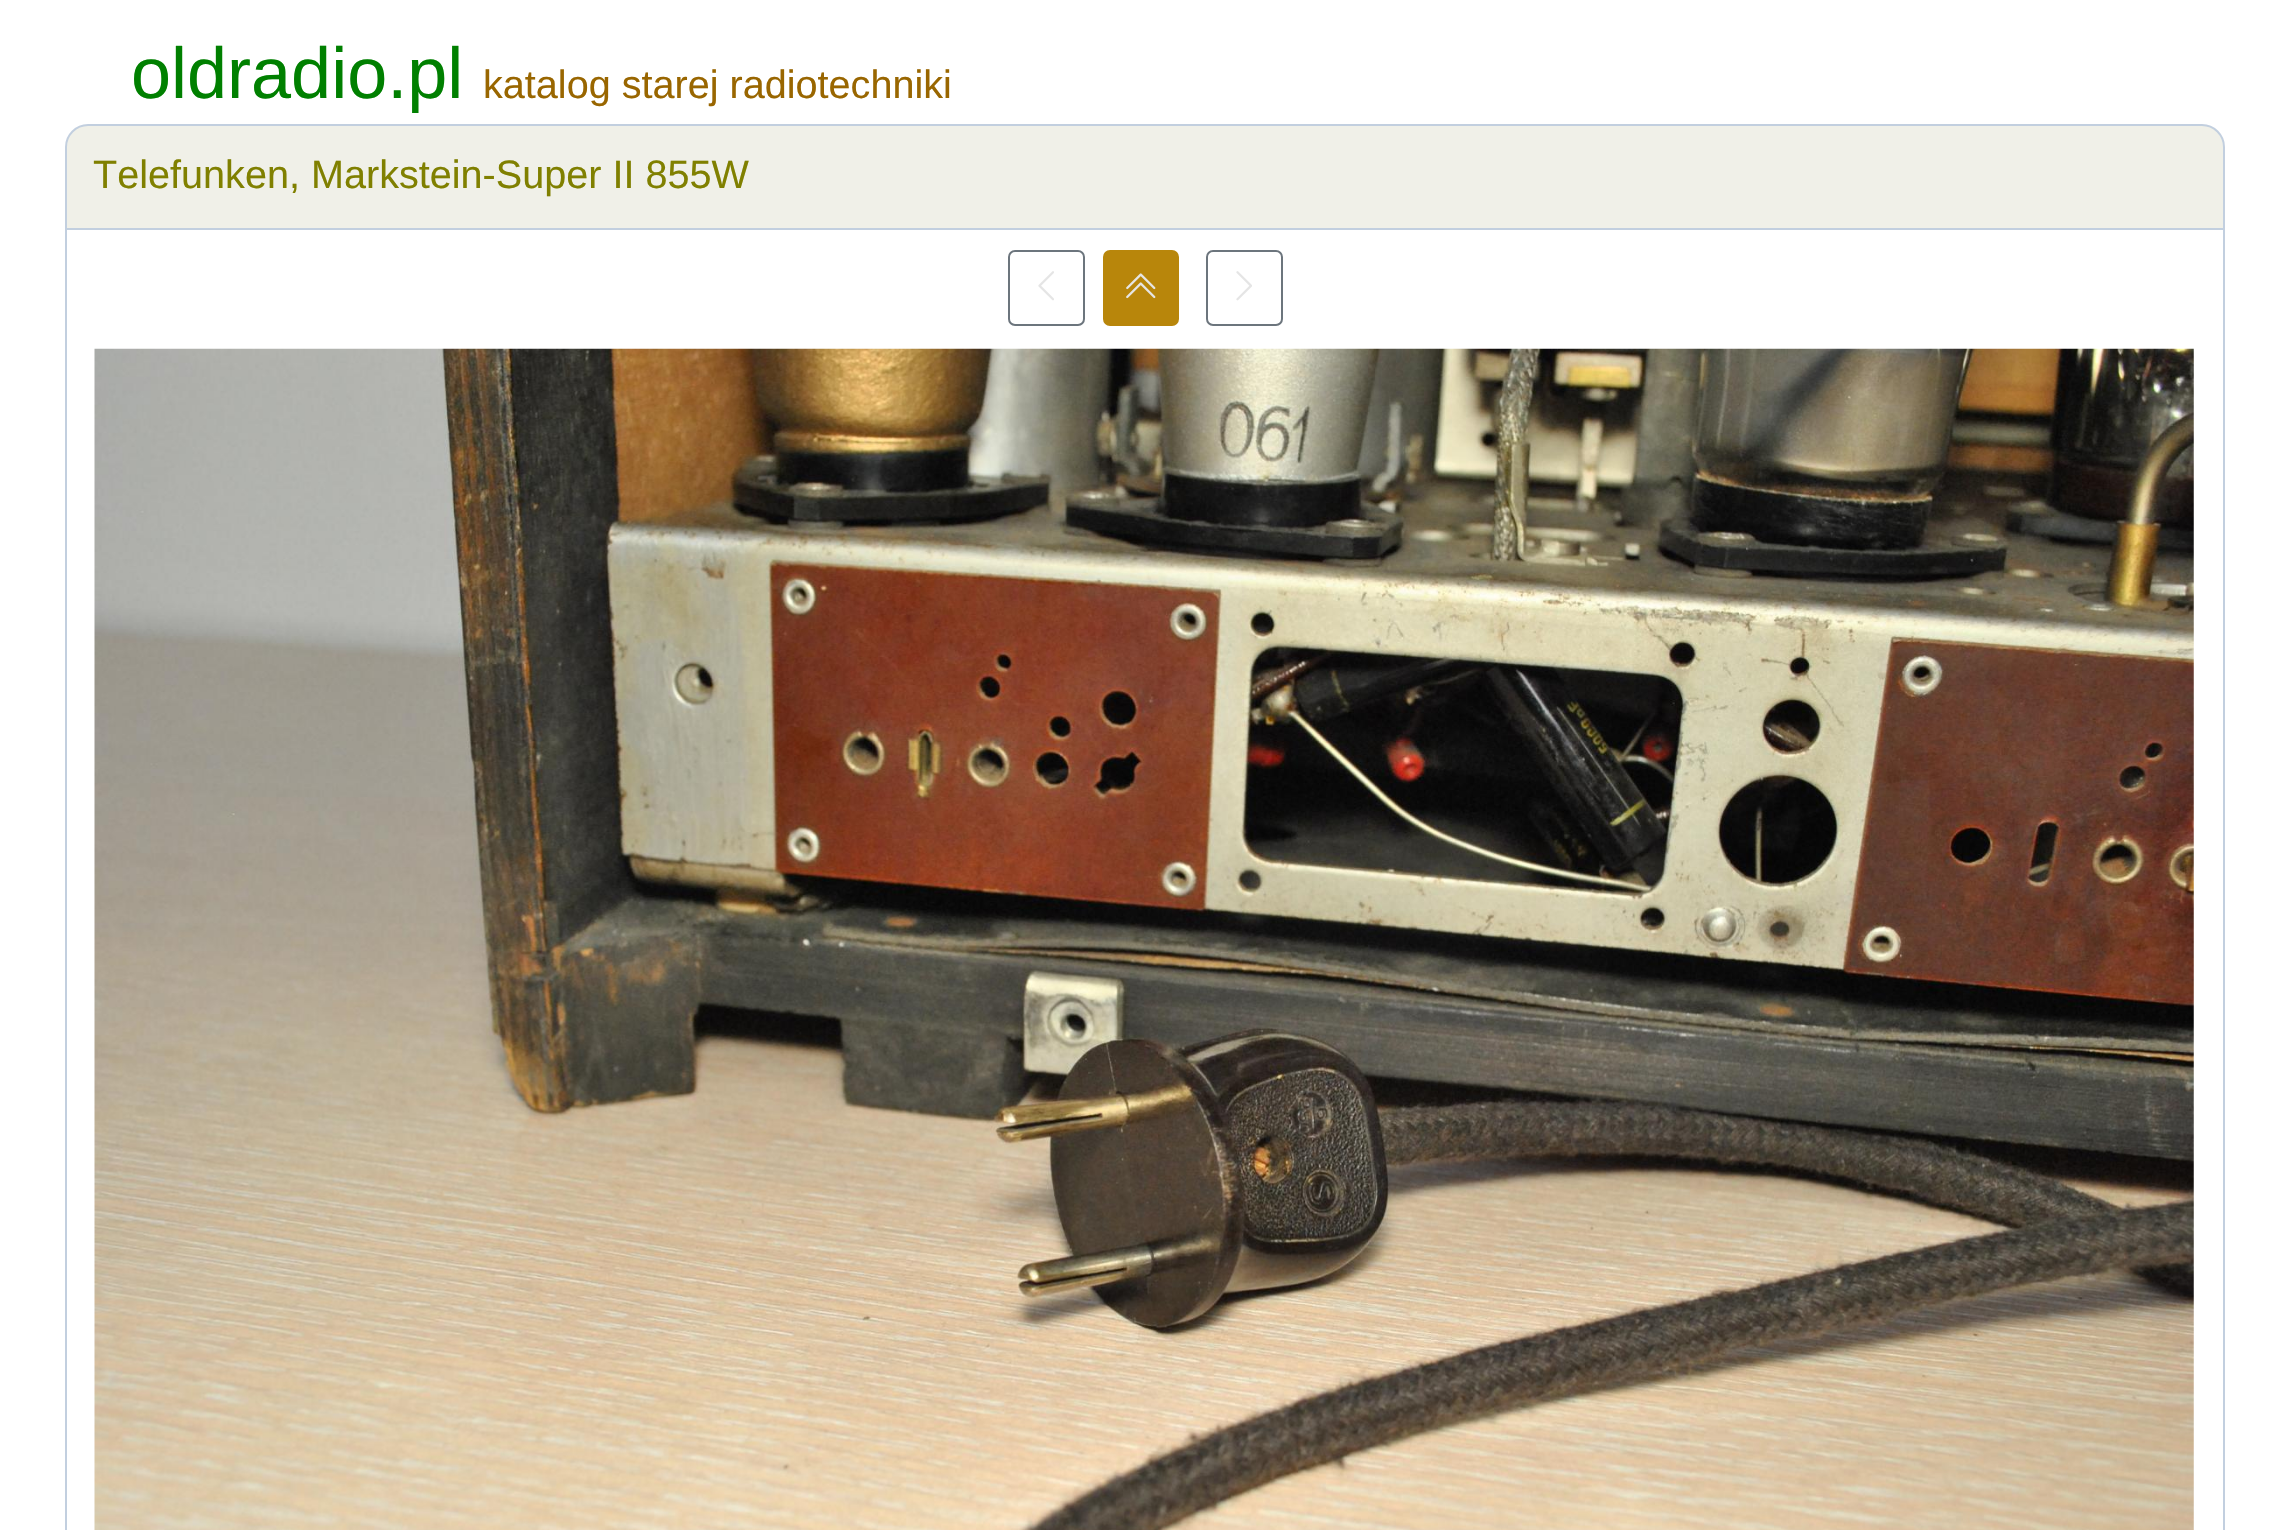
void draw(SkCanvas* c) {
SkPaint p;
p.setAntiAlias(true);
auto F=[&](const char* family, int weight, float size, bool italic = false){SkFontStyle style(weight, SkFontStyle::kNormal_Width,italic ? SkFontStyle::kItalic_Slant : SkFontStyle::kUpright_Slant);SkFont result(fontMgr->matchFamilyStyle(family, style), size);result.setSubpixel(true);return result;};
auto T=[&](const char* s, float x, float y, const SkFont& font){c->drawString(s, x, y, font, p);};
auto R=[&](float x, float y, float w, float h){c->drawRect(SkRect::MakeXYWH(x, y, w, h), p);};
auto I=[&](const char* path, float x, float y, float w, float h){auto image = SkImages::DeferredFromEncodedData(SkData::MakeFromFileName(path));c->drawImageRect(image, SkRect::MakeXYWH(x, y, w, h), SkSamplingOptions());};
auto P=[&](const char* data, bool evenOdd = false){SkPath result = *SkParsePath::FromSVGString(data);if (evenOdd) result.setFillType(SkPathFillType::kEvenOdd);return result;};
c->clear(0xffffffff);
auto f1 = F("Liberation Sans",400,72);
p.setColor(0xff008000);
T("oldradio.pl",131,98,f1);
auto f2 = F("Liberation Sans",400,39.6);
p.setColor(0xff996600);
T("katalog starej radiotechniki",483,98,f2);
p.setColor(0xfff0f0e8);
c->drawPath(P("M88 125h2114c12 0 22 10 22 22v82h-2158v-82c0-12 10-22 22-22z"),p);
p.setStroke(true);
p.setStrokeWidth(2);
p.setColor(0xffc2cfdf);
c->drawPath(P("M88 125h2114c12 0 22 10 22 22v82h-2158v-82c0-12 10-22 22-22z"),p);
p.setStroke(false);
p.setColor(0xff808000);
T("Telefunken, Markstein-Super II 855W",93,188,f2);
p.setColor(0xffc2cfdf);
R(2223,230,2,1300);
R(65,230,2,1300);
p.setStroke(true);
p.setColor(0xff6c757d);
c->drawRoundRect(SkRect::MakeXYWH(1009,251,75,74),6,6,p);
I("1.png",1038,271,16,30);
p.setStroke(false);
p.setColor(0xffb8860b);
c->drawRoundRect(SkRect::MakeXYWH(1104,251,74,74),6,6,p);
p.setStroke(true);
c->drawRoundRect(SkRect::MakeXYWH(1104,251,74,74),6,6,p);
I("2.png",1126,273,30,26);
p.setColor(0xff6c757d);
c->drawRoundRect(SkRect::MakeXYWH(1207,251,75,74),6,6,p);
I("3.png",1236,271,16,30);
I("4.png",94,348,2100,1182);
}
